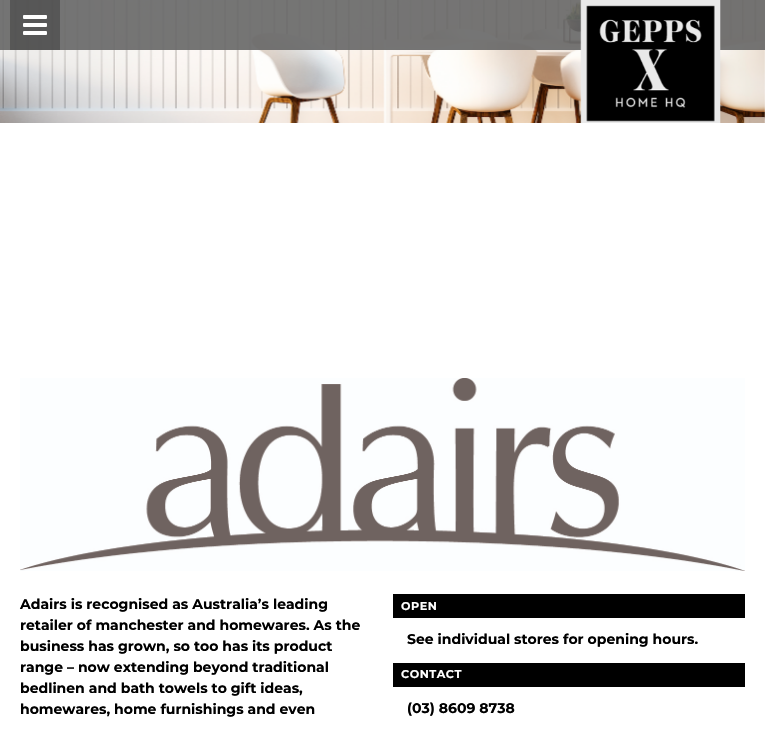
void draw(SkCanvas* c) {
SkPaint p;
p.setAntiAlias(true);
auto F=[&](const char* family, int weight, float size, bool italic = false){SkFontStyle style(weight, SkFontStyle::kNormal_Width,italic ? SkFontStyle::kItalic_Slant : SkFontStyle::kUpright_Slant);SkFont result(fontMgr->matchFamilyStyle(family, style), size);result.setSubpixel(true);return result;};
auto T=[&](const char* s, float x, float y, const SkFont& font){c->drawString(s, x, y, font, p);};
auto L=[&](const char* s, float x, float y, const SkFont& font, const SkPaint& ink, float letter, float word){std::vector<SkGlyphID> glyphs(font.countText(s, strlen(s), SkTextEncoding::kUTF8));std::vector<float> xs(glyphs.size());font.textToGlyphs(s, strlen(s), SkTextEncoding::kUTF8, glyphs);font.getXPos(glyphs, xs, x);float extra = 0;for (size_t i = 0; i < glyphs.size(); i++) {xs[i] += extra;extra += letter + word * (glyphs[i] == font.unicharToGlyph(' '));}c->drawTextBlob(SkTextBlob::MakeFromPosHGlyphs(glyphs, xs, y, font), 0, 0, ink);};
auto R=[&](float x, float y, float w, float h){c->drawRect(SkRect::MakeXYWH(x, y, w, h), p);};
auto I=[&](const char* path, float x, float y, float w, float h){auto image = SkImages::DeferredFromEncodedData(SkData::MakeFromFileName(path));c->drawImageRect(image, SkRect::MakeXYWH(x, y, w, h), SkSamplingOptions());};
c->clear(0xffffffff);
I("1.png",0,0,765,123);
p.setColor(0xe6666666);
R(0,0,765,50);
p.setColor(0x40000000);
R(10,0,50,50);
I("2.png",23,15,24,20);
I("3.png",580,0,141,123);
I("4.png",20,378,725,193);
auto f1 = F("Montserrat",700,14);
p.setColor(0xff000000);
T("Adairs is recognised as Australia’s leading",20,609,f1);
T("retailer of manchester and homewares. As the",20,630,f1);
T("business has grown, so too has its product",20,651,f1);
T("range – now extending beyond traditional",20,672,f1);
T("bedlinen and bath towels to gift ideas,",20,693,f1);
T("homewares, home furnishings and even",20,714,f1);
R(393,594,352,24);
auto f2 = F("Montserrat",700,11.25);
p.setColor(0xffffffff);
L("OPEN",401,610,f2,p,.5,0);
p.setColor(0xff000000);
T("See individual stores for opening hours.",407,644,f1);
R(393,663,352,24);
p.setColor(0xffffffff);
L("CONTACT",401,678,f2,p,.5,0);
p.setColor(0xff000000);
T("(03) 8609 8738",407,713,f1);
}
